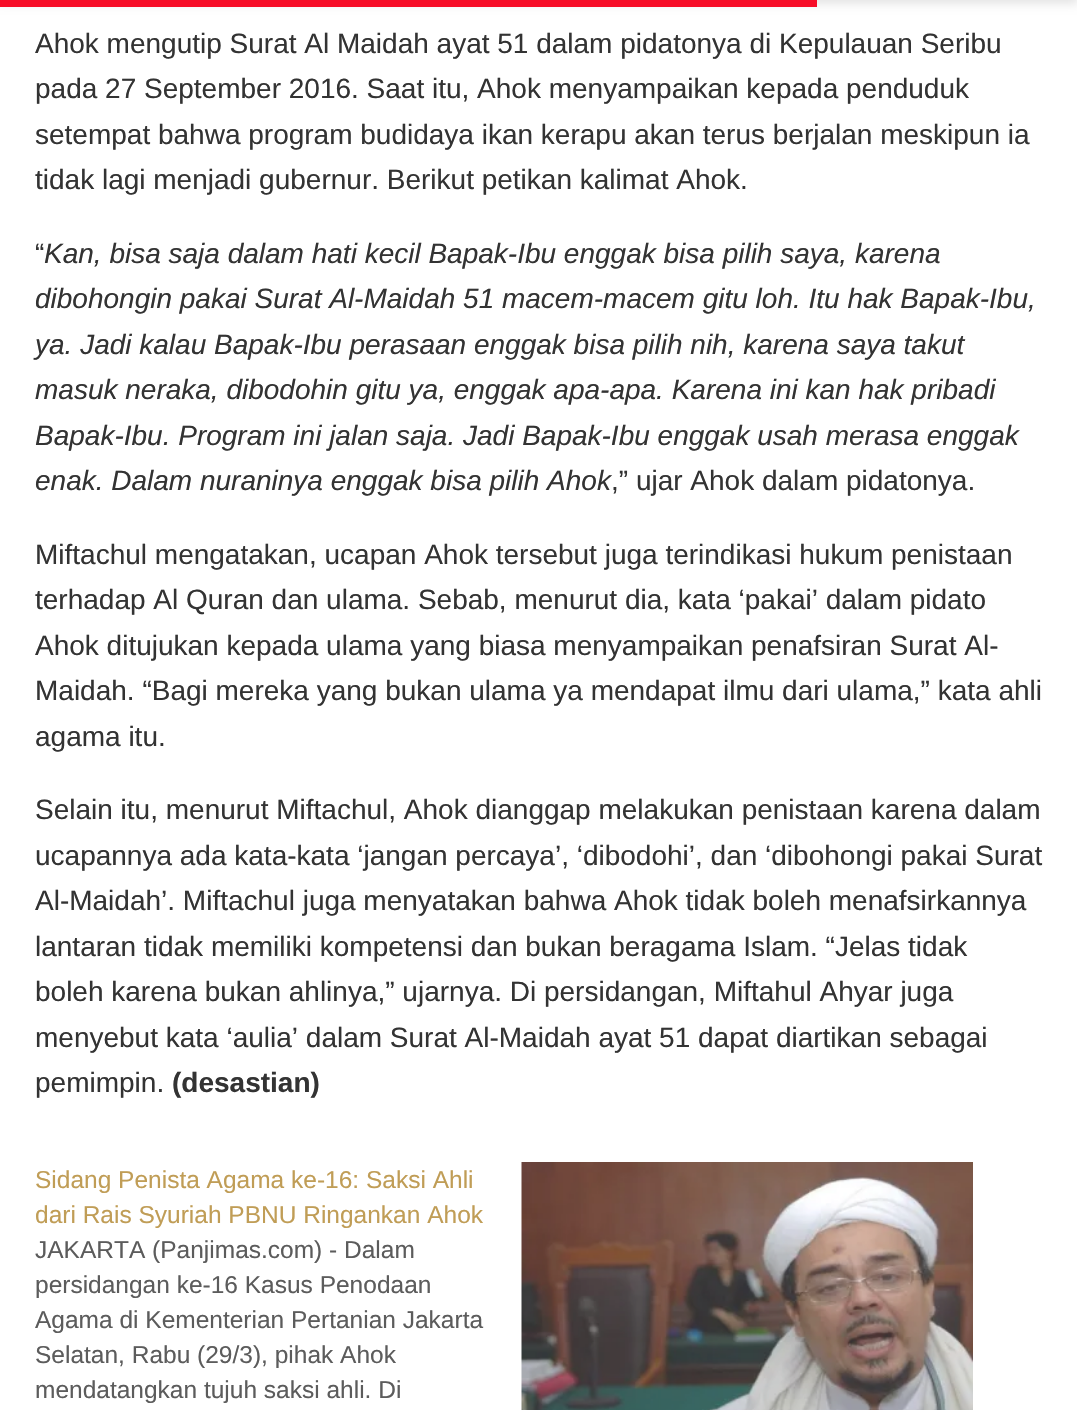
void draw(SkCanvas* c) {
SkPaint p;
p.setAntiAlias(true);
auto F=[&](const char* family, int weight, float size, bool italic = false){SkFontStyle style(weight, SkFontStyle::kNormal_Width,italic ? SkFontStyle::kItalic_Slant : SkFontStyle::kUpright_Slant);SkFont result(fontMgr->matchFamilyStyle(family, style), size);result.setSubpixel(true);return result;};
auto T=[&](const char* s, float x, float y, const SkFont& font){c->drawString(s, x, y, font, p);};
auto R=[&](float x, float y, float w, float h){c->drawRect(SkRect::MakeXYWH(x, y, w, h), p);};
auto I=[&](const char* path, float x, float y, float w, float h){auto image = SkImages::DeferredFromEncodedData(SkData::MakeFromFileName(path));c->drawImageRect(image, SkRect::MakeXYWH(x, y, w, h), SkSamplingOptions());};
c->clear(0xffffffff);
p.setColor(0x1a000000);
p.setMaskFilter(SkMaskFilter::MakeBlur(kNormal_SkBlurStyle, 5));
c->drawRect(SkRect::MakeXYWH(0,-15,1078,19),p);
p.setMaskFilter(nullptr);
p.setColor(0xfff70d28);
R(0,0,817,7);
auto f1 = F("Liberation Sans",400,28);
p.setColor(0xff333333);
T("Ahok mengutip Surat Al Maidah ayat 51 dalam pidatonya di Kepulauan Seribu",35,53,f1);
T("pada 27 September 2016. Saat itu, Ahok menyampaikan kepada penduduk",35,98,f1);
T("setempat bahwa program budidaya ikan kerapu akan terus berjalan meskipun ia",35,144,f1);
T("tidak lagi menjadi gubernur. Berikut petikan kalimat Ahok.",35,189,f1);
T("“",35,263,f1);
auto f2 = F("Liberation Sans",400,28,true);
T("Kan, bisa saja dalam hati kecil Bapak-Ibu enggak bisa pilih saya, karena",44,263,f2);
T("dibohongin pakai Surat Al-Maidah 51 macem-macem gitu loh. Itu hak Bapak-Ibu,",35,308,f2);
T("ya. Jadi kalau Bapak-Ibu perasaan enggak bisa pilih nih, karena saya takut",35,354,f2);
T("masuk neraka, dibodohin gitu ya, enggak apa-apa. Karena ini kan hak pribadi",35,399,f2);
T("Bapak-Ibu. Program ini jalan saja. Jadi Bapak-Ibu enggak usah merasa enggak",35,445,f2);
T("enak. Dalam nuraninya enggak bisa pilih Ahok",35,490,f2);
T(",” ujar Ahok dalam pidatonya.",611,490,f1);
T("Miftachul mengatakan, ucapan Ahok tersebut juga terindikasi hukum penistaan",35,564,f1);
T("terhadap Al Quran dan ulama. Sebab, menurut dia, kata ‘pakai’ dalam pidato",35,609,f1);
T("Ahok ditujukan kepada ulama yang biasa menyampaikan penafsiran Surat Al-",35,655,f1);
T("Maidah. “Bagi mereka yang bukan ulama ya mendapat ilmu dari ulama,” kata ahli",35,700,f1);
T("agama itu.",35,746,f1);
T("Selain itu, menurut Miftachul, Ahok dianggap melakukan penistaan karena dalam",35,819,f1);
T("ucapannya ada kata-kata ‘jangan percaya’, ‘dibodohi’, dan ‘dibohongi pakai Surat",35,865,f1);
T("Al-Maidah’. Miftachul juga menyatakan bahwa Ahok tidak boleh menafsirkannya",35,910,f1);
T("lantaran tidak memiliki kompetensi dan bukan beragama Islam. “Jelas tidak",35,956,f1);
T("boleh karena bukan ahlinya,” ujarnya. Di persidangan, Miftahul Ahyar juga",35,1001,f1);
T("menyebut kata ‘aulia’ dalam Surat Al-Maidah ayat 51 dapat diartikan sebagai",35,1047,f1);
T("pemimpin.",35,1092,f1);
auto f3 = F("Liberation Sans",700,28);
T("(desastian)",172,1092,f3);
auto f4 = F("Liberation Sans",400,24.5);
p.setColor(0xffc09d56);
T("Sidang Penista Agama ke-16: Saksi Ahli",35,1188,f4);
T("dari Rais Syuriah PBNU Ringankan Ahok",35,1223,f4);
p.setColor(0xff5c5c5c);
T("JAKARTA (Panjimas.com) - Dalam",35,1258,f4);
T("persidangan ke-16 Kasus Penodaan",35,1293,f4);
T("Agama di Kementerian Pertanian Jakarta",35,1328,f4);
T("Selatan, Rabu (29/3), pihak Ahok",35,1363,f4);
T("mendatangkan tujuh saksi ahli. Di",35,1398,f4);
I("1.png",521,1162,452,248);
}
